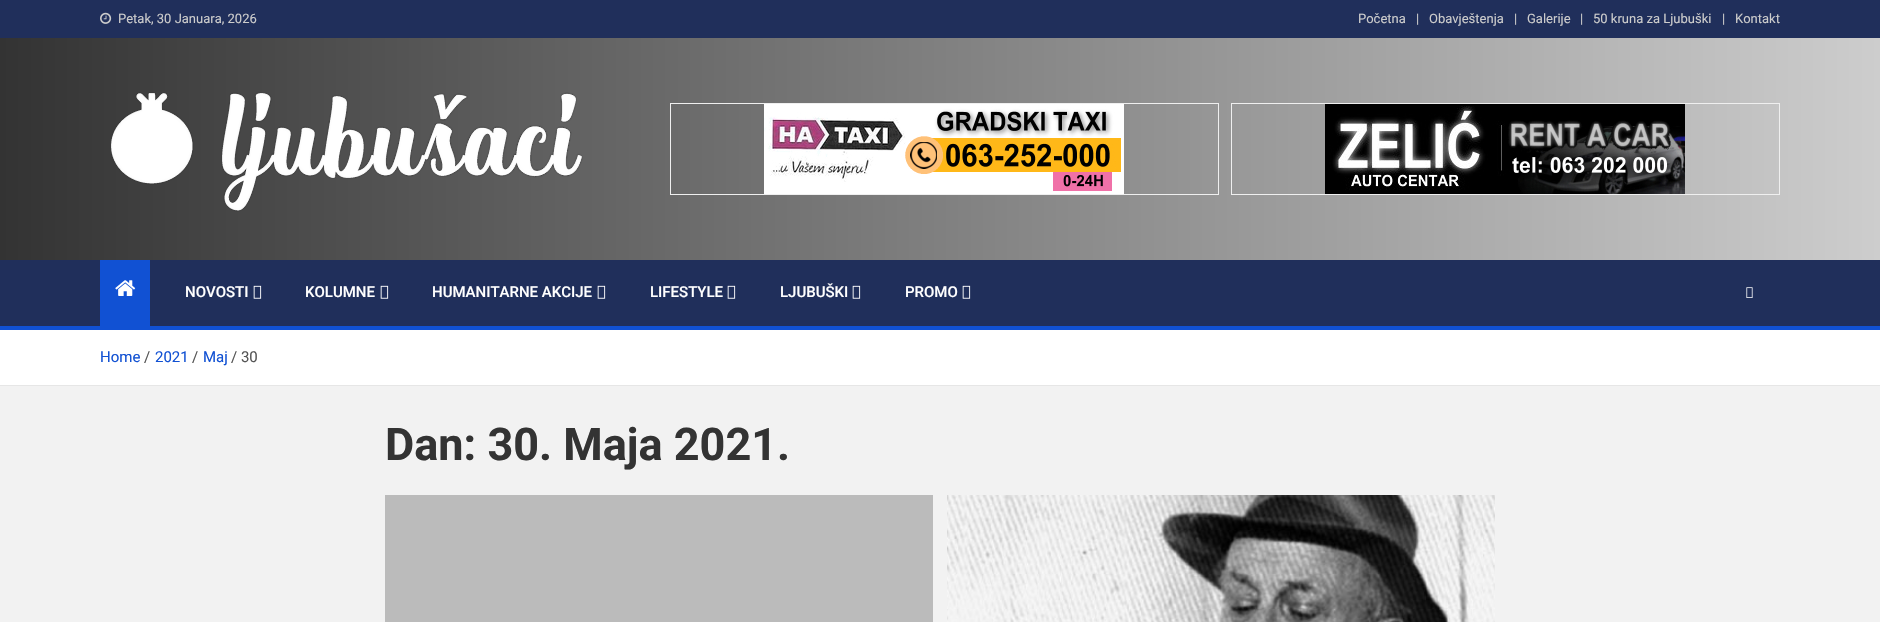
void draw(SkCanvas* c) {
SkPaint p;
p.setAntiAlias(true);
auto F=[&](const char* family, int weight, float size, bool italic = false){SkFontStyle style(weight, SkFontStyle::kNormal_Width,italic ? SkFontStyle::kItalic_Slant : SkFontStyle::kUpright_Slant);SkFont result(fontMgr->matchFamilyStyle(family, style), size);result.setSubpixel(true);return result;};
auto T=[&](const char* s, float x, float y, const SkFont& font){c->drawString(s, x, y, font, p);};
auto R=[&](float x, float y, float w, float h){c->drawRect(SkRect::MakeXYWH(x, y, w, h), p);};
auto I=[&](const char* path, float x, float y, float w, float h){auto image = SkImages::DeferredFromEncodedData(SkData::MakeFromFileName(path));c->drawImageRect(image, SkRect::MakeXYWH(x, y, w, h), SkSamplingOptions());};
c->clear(0xfff2f2f2);
p.setColor(0xff202f5b);
R(0,0,1880,38);
I("1.png",100,12,12,12);
auto f1 = F("Roboto",400,13);
p.setColor(0xffcccccc);
T("Petak, 30 Januara, 2026",118,23,f1);
T("Početna",1358,23,f1);
T("|",1416,23,f1);
T("Obavještenja",1429,23,f1);
T("|",1514,23,f1);
T("Galerije",1527,23,f1);
T("|",1580,23,f1);
T("50 kruna za Ljubuški",1593,23,f1);
T("|",1722,23,f1);
T("Kontakt",1735,23,f1);
{
const SkColor colors[] = {0xff333333,0xffcdcdcd};
const float stops[] = {0,1};
const SkPoint ends[] = {{0,149}, {1880,149}};
p.setShader(SkGradientShader::MakeLinear(ends, colors, stops, 2, SkTileMode::kClamp));
p.setAlpha(255);
}
R(0,38,1880,222);
I("2.png",111,92,472,120);
p.setStroke(true);
p.setStrokeWidth(1);
p.setShader(nullptr);
p.setColor(0xffefefef);
c->drawRect(SkRect::MakeXYWH(670.5,103.5,548,91),p);
I("3.png",764,104,360,90);
c->drawRect(SkRect::MakeXYWH(1231.5,103.5,548,91),p);
I("4.png",1325,104,360,90);
p.setStroke(false);
p.setColor(0xff202f5b);
R(0,260,1880,66);
p.setColor(0xff1151d3);
R(0,326,1880,4);
R(100,260,50,66);
I("5.png",115,280,21,16);
auto f2 = F("Roboto",500,15);
p.setColor(0xffffffff);
T("NOVOSTI",185,297,f2);
I("6.png",253,285,9,14);
T("KOLUMNE",305,297,f2);
I("6.png",380,285,9,14);
T("HUMANITARNE AKCIJE",432,297,f2);
I("6.png",597,285,9,14);
T("LIFESTYLE",650,297,f2);
I("6.png",727,285,9,14);
T("LJUBUŠKI",780,297,f2);
I("6.png",852,285,9,14);
T("PROMO",905,297,f2);
I("6.png",962,285,9,14);
I("7.png",1746,287,7,11);
R(0,330,1880,55);
p.setColor(0xffe6e6e6);
R(0,385,1880,1);
auto f3 = F("Roboto",400,15);
p.setColor(0xff1151d3);
T("Home",100,362,f3);
p.setColor(0xff555555);
T("/",144,362,f3);
p.setColor(0xff1151d3);
T("2021",155,362,f3);
p.setColor(0xff555555);
T("/",192,362,f3);
p.setColor(0xff1151d3);
T("Maj",203,362,f3);
p.setColor(0xff555555);
T("/ 30",231,362,f3);
auto f4 = F("Roboto",700,45);
p.setColor(0xff333333);
T("Dan: 30. Maja 2021.",385,460,f4);
p.setColor(0xffbbbbbb);
R(385,495,548,127);
I("8.png",947,495,548,127);
}
